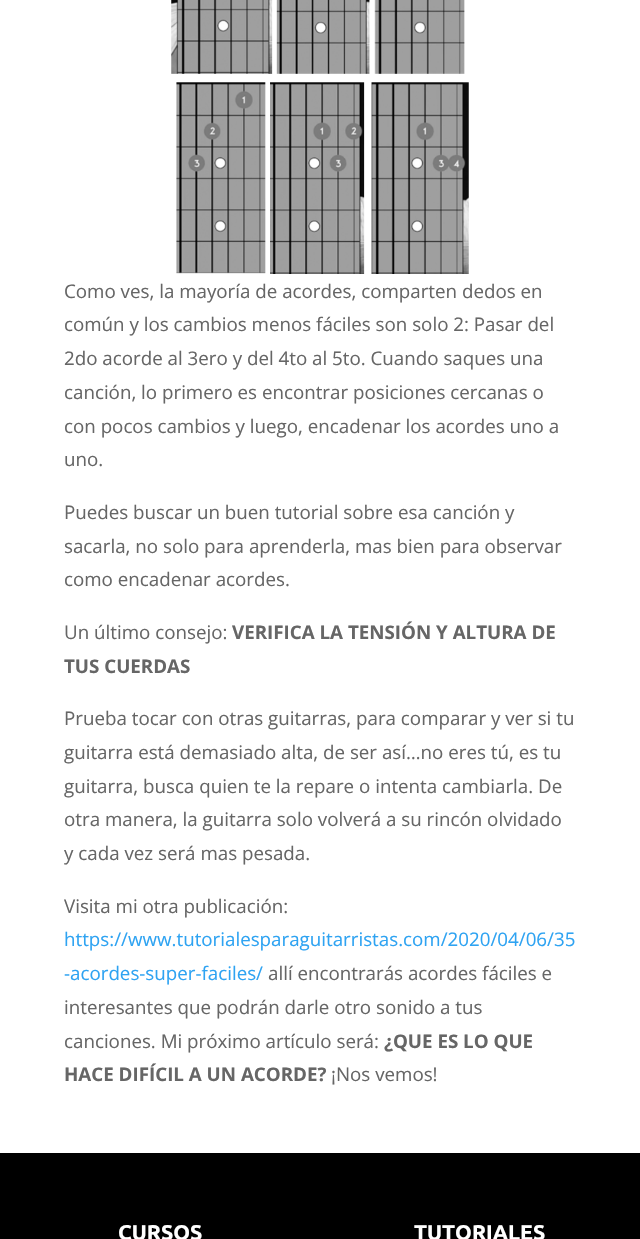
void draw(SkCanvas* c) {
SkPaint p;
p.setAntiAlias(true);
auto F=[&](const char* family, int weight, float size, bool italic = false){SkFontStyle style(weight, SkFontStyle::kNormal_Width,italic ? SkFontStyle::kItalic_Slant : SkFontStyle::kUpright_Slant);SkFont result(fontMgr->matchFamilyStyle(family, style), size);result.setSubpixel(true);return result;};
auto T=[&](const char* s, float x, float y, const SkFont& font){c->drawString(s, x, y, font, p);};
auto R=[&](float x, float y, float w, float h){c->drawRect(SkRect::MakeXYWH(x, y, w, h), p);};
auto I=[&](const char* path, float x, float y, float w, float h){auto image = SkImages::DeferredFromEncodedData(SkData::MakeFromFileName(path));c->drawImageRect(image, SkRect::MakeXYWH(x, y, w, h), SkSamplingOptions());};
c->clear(0xffffffff);
I("1.png",171,0,298,274);
auto f1 = F("Open Sans",400,18.75);
p.setColor(0xff666666);
T("Como ves, la mayoría de acordes, comparten dedos en",64,298,f1);
T("común y los cambios menos fáciles son solo 2: Pasar del",64,331,f1);
T("2do acorde al 3ero y del 4to al 5to. Cuando saques una",64,365,f1);
T("canción, lo primero es encontrar posiciones cercanas o",64,399,f1);
T("con pocos cambios y luego, encadenar los acordes uno a",64,433,f1);
T("uno.",64,466,f1);
T("Puedes buscar un buen tutorial sobre esa canción y",64,519,f1);
T("sacarla, no solo para aprenderla, mas bien para observar",64,553,f1);
T("como encadenar acordes.",64,586,f1);
T("Un último consejo:",64,639,f1);
auto f2 = F("Open Sans",700,18.75);
T("VERIFICA LA TENSIÓN Y ALTURA DE",232,639,f2);
T("TUS CUERDAS",64,673,f2);
T("Prueba tocar con otras guitarras, para comparar y ver si tu",64,725,f1);
T("guitarra está demasiado alta, de ser así…no eres tú, es tu",64,759,f1);
T("guitarra, busca quien te la repare o intenta cambiarla. De",64,793,f1);
T("otra manera, la guitarra solo volverá a su rincón olvidado",64,826,f1);
T("y cada vez será mas pesada.",64,860,f1);
T("Visita mi otra publicación:",64,913,f1);
p.setColor(0xff2ea3f2);
T("https://www.tutorialesparaguitarristas.com/2020/04/06/35",64,946,f1);
T("-acordes-super-faciles/",64,980,f1);
p.setColor(0xff666666);
T("allí encontrarás acordes fáciles e",268,980,f1);
T("interesantes que podrán darle otro sonido a tus",64,1014,f1);
T("canciones. Mi próximo artículo será:",64,1048,f1);
T("¿QUE ES LO QUE",384,1048,f2);
T("HACE DIFÍCIL A UN ACORDE?",64,1081,f2);
T("¡Nos vemos!",331,1081,f1);
p.setColor(0xff000000);
R(0,1153,640,86);
auto f3 = F("Ubuntu",700,21.25);
p.setColor(0xffffffff);
T("CURSOS",118,1240,f3);
T("TUTORIALES",414,1240,f3);
}
